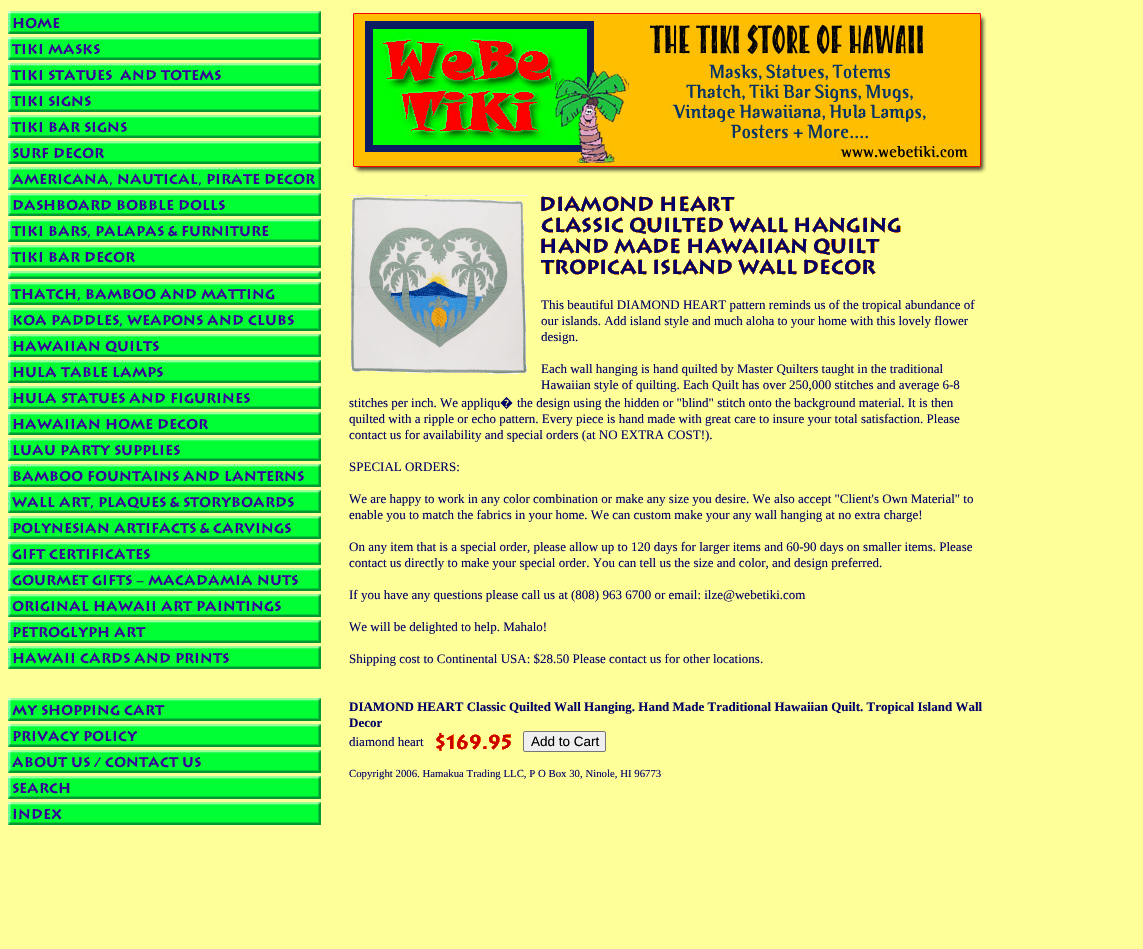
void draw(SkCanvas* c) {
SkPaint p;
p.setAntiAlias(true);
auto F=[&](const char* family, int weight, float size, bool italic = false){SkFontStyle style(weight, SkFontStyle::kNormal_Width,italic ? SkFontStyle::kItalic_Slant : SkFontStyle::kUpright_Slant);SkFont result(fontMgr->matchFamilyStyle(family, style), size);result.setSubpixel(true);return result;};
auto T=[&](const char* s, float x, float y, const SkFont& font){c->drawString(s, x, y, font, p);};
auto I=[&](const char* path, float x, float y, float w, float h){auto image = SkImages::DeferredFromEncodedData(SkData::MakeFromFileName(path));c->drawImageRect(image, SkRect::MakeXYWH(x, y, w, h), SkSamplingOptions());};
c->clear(0xffffff99);
I("1.png",8,11,313,814);
I("2.png",349,8,638,168);
I("3.png",349,195,179,179);
I("4.png",541,196,360,79);
auto f1 = F("Liberation Serif",400,13);
p.setColor(0xff000066);
T("This beautiful DIAMOND HEART pattern reminds us of the tropical abundance of",541,309,f1);
T("our islands. Add island style and much aloha to your home with this lovely flower",541,325,f1);
T("design.",541,341,f1);
T("Each wall hanging is hand quilted by Master Quilters taught in the traditional",541,373,f1);
T("Hawaiian style of quilting. Each Quilt has over 250,000 stitches and average 6-8",541,389,f1);
T("stitches per inch. We appliqu",349,407,f1);
auto f2 = F("Noto Sans",400,13);
T("�",500,407,f2);
T("the design using the hidden or \"blind\" stitch onto the background material. It is then",517,407,f1);
T("quilted with a ripple or echo pattern. Every piece is hand made with great care to insure your total satisfaction. Please",349,423,f1);
T("contact us for availability and special orders (at NO EXTRA COST!).",349,439,f1);
T("SPECIAL ORDERS:",349,471,f1);
T("We are happy to work in any color combination or make any size you desire. We also accept \"Client's Own Material\" to",349,503,f1);
T("enable you to match the fabrics in your home. We can custom make your any wall hanging at no extra charge!",349,519,f1);
T("On any item that is a special order, please allow up to 120 days for larger items and 60-90 days on smaller items. Please",349,551,f1);
T("contact us directly to make your special order. You can tell us the size and color, and design preferred.",349,567,f1);
T("If you have any questions please call us at (808) 963 6700 or email: ilze@webetiki.com",349,599,f1);
T("We will be delighted to help. Mahalo!",349,631,f1);
T("Shipping cost to Continental USA: $28.50 Please contact us for other locations.",349,663,f1);
auto f3 = F("Liberation Serif",700,13);
T("DIAMOND HEART Classic Quilted Wall Hanging. Hand Made Traditional Hawaiian Quilt. Tropical Island Wall",349,711,f3);
T("Decor",349,727,f3);
T("diamond heart",349,746,f1);
I("5.png",436,733,75,18);
p.setColor(0xffefefef);
c->drawRoundRect(SkRect::MakeXYWH(523.5,731.5,82,20),1.5,1.5,p);
p.setStroke(true);
p.setStrokeWidth(1);
p.setColor(0xff767676);
c->drawRoundRect(SkRect::MakeXYWH(523.5,731.5,82,20),1.5,1.5,p);
auto f4 = F("Liberation Sans",400,13.5);
p.setStroke(false);
p.setColor(0xff000000);
T("Add to Cart",531,746,f4);
auto f5 = F("Liberation Serif",400,10.8);
p.setColor(0xff000066);
T("Copyright 2006. Hamakua Trading LLC, P O Box 30, Ninole, HI 96773",349,777,f5);
}
